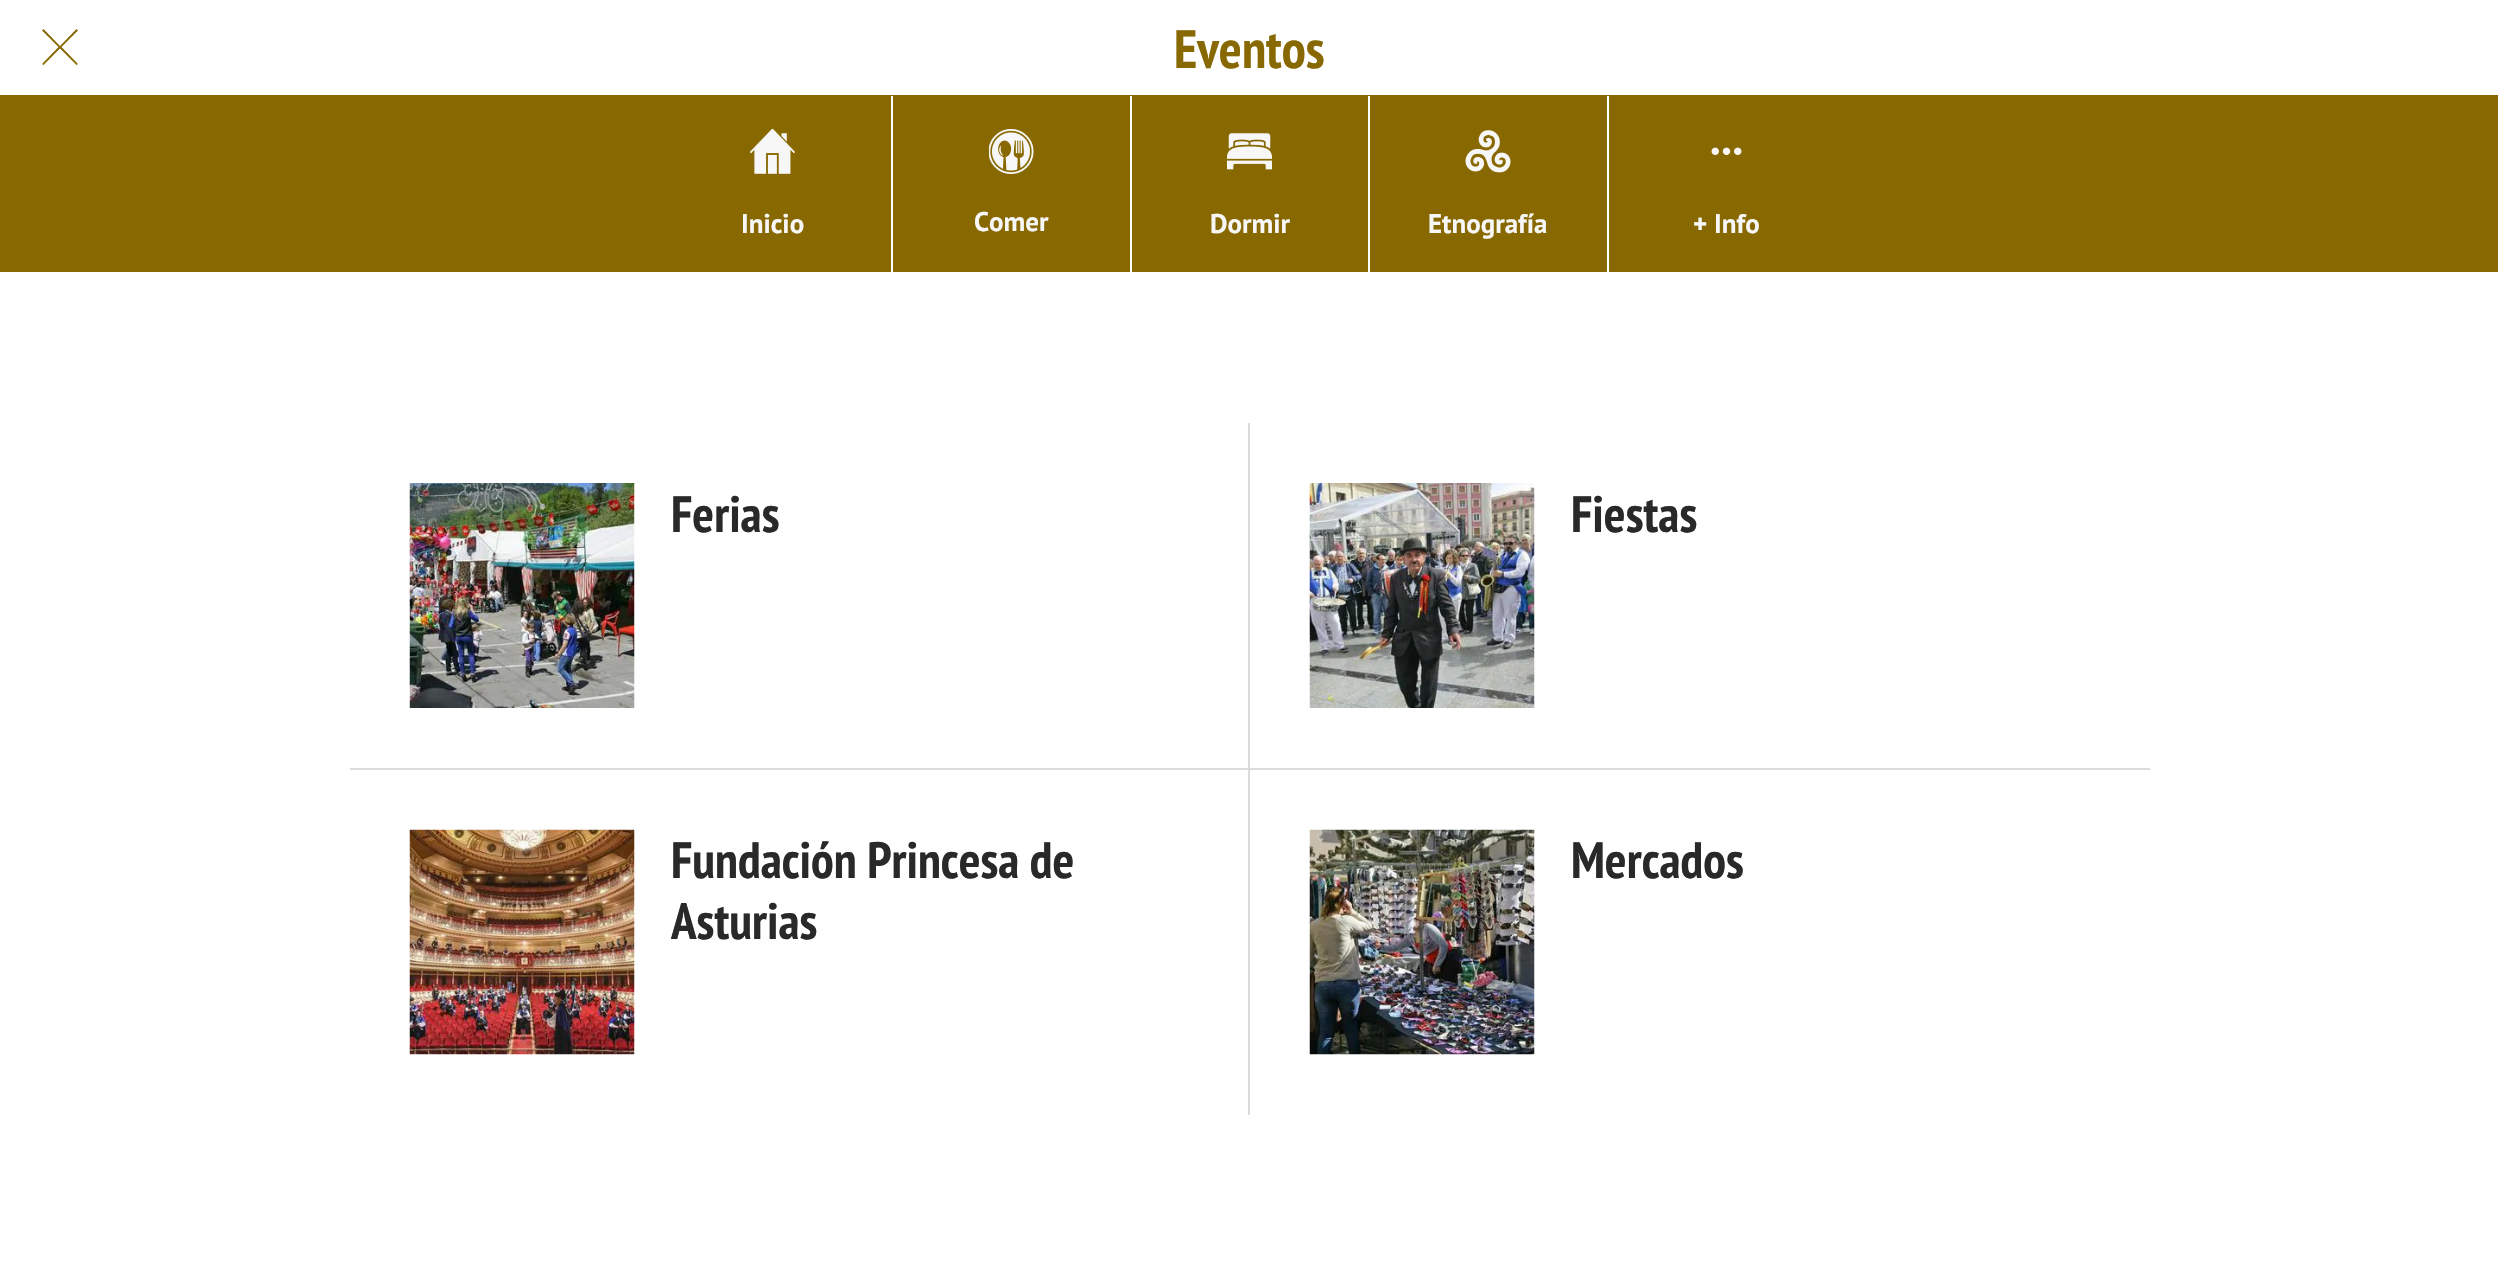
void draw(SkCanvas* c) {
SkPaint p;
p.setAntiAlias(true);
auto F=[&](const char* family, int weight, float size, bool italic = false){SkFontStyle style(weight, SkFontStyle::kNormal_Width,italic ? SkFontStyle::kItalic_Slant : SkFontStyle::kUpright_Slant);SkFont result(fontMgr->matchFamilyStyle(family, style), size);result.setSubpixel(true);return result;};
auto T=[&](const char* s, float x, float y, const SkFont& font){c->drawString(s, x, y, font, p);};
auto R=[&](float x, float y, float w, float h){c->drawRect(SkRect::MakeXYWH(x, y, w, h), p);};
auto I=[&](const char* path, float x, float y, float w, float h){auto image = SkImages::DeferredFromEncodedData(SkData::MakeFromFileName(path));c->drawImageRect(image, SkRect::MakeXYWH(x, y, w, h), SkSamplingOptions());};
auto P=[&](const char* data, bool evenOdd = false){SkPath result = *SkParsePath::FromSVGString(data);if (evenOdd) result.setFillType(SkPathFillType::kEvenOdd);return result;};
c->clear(0xffffffff);
p.setColor(0xff886800);
c->drawPath(P("M78 30.5l-1.5-1.5l-16.5 17l-16.5-17l-1.5 1.5l16.5 16.5l-16.5 17l1.5 1l16.5-16.5l16.5 16.5l1.5-1l-16.5-17z"),p);
auto f1 = F("PT Sans Narrow",700,54);
T("Eventos",1174,68,f1);
R(0,95,2498,177);
p.setColor(0xffffffff);
R(891,96,2,176);
I("1.png",750,128,45,46);
auto f2 = F("PT Sans",700,27);
p.setColor(0xfff7f7f7);
T("Inicio",741,233,f2);
p.setColor(0xffffffff);
R(1130,96,2,176);
I("2.png",989,129,45,45);
p.setColor(0xfff7f7f7);
T("Comer",974,231,f2);
p.setColor(0xffffffff);
R(1368,96,2,176);
I("3.png",1227,133,45,37);
p.setColor(0xfff7f7f7);
T("Dormir",1210,233,f2);
p.setColor(0xffffffff);
R(1607,96,2,176);
I("4.png",1465,130,46,43);
p.setColor(0xfff7f7f7);
T("Etnografía",1428,233,f2);
I("5.png",1711,147,31,8);
T("+ Info",1693,233,f2);
p.setColor(0xffdbdbdb);
R(1248,423,2,692);
R(350,768,1800,2);
I("6.png",409,483,226,225);
auto f3 = F("PT Sans Narrow",700,51);
p.setColor(0xff292929);
T("Ferias",671,532,f3);
I("7.png",1309,483,226,225);
T("Fiestas",1571,532,f3);
I("8.png",409,829,226,226);
T("Fundación Princesa de",671,878,f3);
T("Asturias",671,939,f3);
I("9.png",1309,829,226,226);
T("Mercados",1571,878,f3);
}
